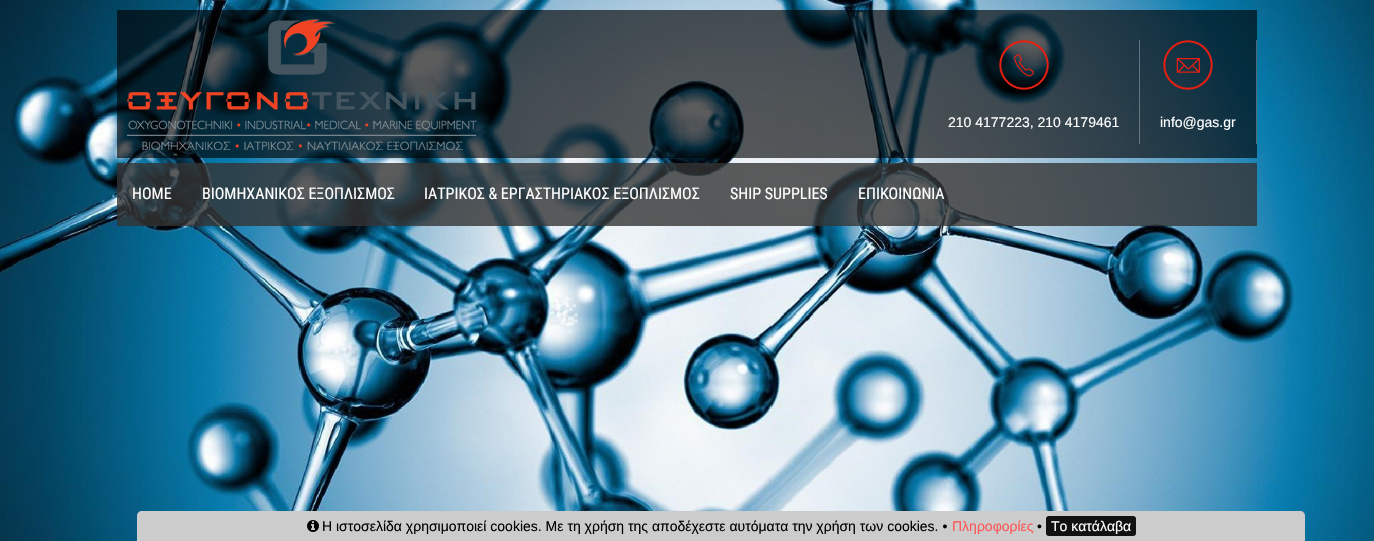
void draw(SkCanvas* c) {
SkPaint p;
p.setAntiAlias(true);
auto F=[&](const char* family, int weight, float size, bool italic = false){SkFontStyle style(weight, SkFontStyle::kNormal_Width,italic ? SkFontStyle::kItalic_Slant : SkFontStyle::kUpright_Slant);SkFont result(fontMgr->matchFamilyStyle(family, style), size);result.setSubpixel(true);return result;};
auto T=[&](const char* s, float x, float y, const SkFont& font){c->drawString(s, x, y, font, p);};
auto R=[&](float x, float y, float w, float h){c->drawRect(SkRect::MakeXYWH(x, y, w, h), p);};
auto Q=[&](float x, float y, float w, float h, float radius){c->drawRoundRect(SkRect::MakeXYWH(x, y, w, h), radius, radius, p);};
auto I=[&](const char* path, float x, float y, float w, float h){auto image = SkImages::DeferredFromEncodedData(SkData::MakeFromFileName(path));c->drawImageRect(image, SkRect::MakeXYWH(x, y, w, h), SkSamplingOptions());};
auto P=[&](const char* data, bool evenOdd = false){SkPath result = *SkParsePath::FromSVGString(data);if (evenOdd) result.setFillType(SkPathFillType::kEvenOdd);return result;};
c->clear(0xffffffff);
I("1.png",0,0,1374,541);
p.setColor(0xa3000000);
R(117,10,1140,148);
I("2.png",127,19,350,131);
p.setColor(0x4dffffff);
R(1139,40,1,104);
I("3.png",999,40,50,50);
auto f1 = F("Liberation Sans",400,14);
p.setColor(0xffffffff);
T("210 4177223, 210 4179461",948,127,f1);
p.setColor(0x4dffffff);
R(1256,40,1,104);
I("4.png",1163,40,50,50);
p.setColor(0xffffffff);
T("info@gas.gr",1160,127,f1);
p.setColor(0xcc333333);
R(117,163,1140,63);
auto f2 = F("Roboto Condensed",400,16);
p.setColor(0xffffffff);
T("ΗΟΜΕ",132,199,f2);
T("ΒΙΟΜΗΧΑΝΙΚΟΣ ΕΞΟΠΛΙΣΜΟΣ",202,199,f2);
T("ΙΑΤΡΙΚΟΣ & ΕΡΓΑΣΤΗΡΙΑΚΟΣ ΕΞΟΠΛΙΣΜΟΣ",424,199,f2);
T("SHIP SUPPLIES",730,199,f2);
T("ΕΠΙΚΟΙΝΩΝΙΑ",858,199,f2);
p.setColor(0xffcccccc);
c->drawPath(P("M142 511h1158c3 0 5 2 5 5v25h-1168v-25c0-3 2-5 5-5z"),p);
I("5.png",307,520,12,12);
p.setColor(0xff000000);
T("Η ιστοσελίδα χρησιμοποιεί cookies. Με τη χρήση της αποδέχεστε αυτόματα την χρήση των cookies. •",322,531,f1);
p.setColor(0xffff5555);
T("Πληροφορίες",952,531,f1);
p.setColor(0xff000000);
T("•",1037,531,f1);
p.setColor(0xff111111);
Q(1046,516,90,20,3);
p.setColor(0xffffffff);
T("Το κατάλαβα",1051,531,f1);
}
